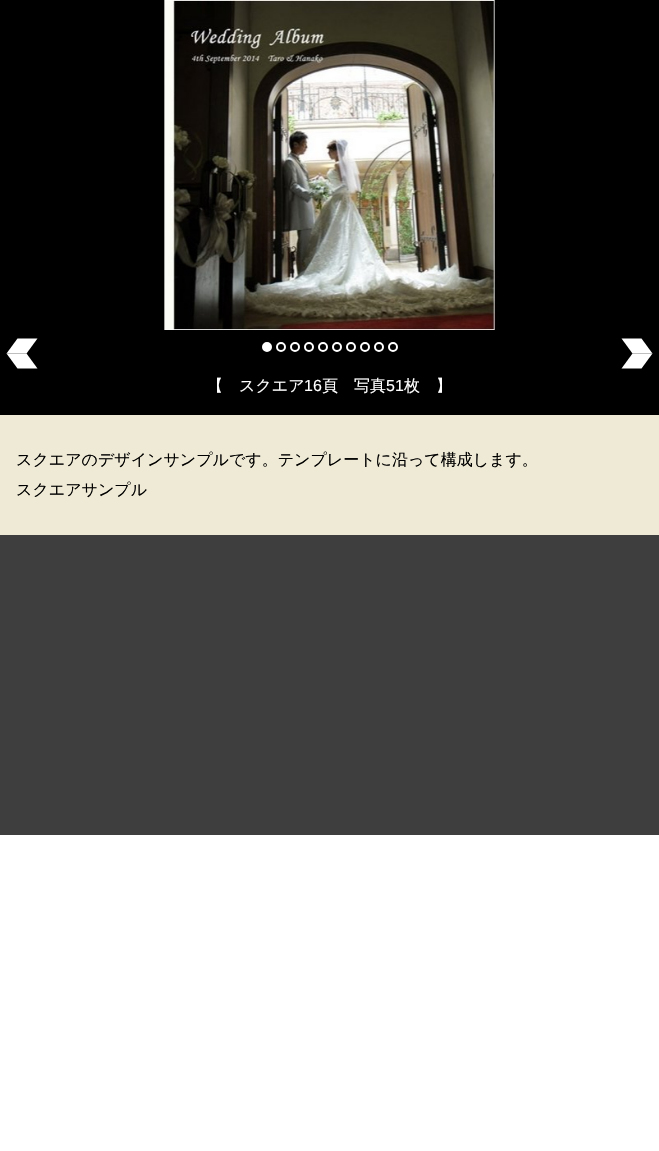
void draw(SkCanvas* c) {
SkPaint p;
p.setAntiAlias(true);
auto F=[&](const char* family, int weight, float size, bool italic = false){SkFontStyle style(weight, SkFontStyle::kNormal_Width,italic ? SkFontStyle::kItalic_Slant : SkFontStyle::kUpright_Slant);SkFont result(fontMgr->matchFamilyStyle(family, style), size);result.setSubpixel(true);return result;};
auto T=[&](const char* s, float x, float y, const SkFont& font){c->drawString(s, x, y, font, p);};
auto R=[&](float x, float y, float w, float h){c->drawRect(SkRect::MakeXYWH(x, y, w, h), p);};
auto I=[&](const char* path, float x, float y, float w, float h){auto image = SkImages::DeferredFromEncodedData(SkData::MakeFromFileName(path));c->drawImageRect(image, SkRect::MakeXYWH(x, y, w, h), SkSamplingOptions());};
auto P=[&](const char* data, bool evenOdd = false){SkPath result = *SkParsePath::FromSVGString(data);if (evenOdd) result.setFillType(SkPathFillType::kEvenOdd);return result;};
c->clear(0xffffffff);
p.setColor(0xff000000);
R(0,0,659,415);
I("1.png",164,0,335,330);
p.setColor(0xffffffff);
c->drawPath(P("M17.5 338.5h20l-11 15h-20z"),p);
c->drawPath(P("M6.5 353.5h20l11 15h-20z"),p);
c->drawPath(P("M641.5 368.5h-20l11-15h20z"),p);
c->drawPath(P("M652.5 353.5h-20l-11-15h20z"),p);
c->drawCircle(267,347,4,p);
p.setStroke(true);
p.setStrokeWidth(2);
c->drawCircle(267,347,4,p);
c->drawCircle(281,347,4,p);
c->drawCircle(295,347,4,p);
c->drawCircle(309,347,4,p);
c->drawCircle(323,347,4,p);
c->drawCircle(337,347,4,p);
c->drawCircle(351,347,4,p);
c->drawCircle(365,347,4,p);
c->drawCircle(379,347,4,p);
c->drawCircle(393,347,4,p);
auto f1 = F("WenQuanYi Zen Hei",500,16);
p.setStroke(false);
T("【　スクエア",207,391,f1);
auto f2 = F("Liberation Sans",400,16);
T("16",304,391,f2);
T("頁　写真",322,391,f1);
T("51",386,391,f2);
T("枚　】",404,391,f1);
p.setColor(0xffefead5);
R(0,415,659,120);
p.setColor(0xff000000);
T("スクエアのデザインサンプルです。テンプレートに沿って構成します。",16,465,f1);
T("スクエアサンプル",16,495,f1);
p.setColor(0xff3e3e3e);
R(0,535,659,300);
}
